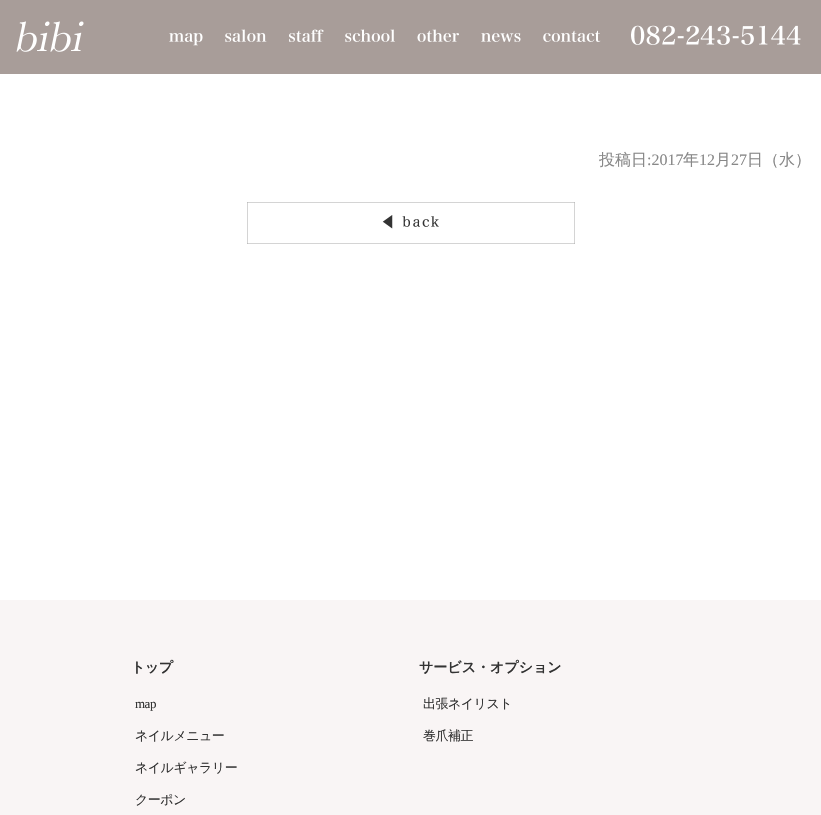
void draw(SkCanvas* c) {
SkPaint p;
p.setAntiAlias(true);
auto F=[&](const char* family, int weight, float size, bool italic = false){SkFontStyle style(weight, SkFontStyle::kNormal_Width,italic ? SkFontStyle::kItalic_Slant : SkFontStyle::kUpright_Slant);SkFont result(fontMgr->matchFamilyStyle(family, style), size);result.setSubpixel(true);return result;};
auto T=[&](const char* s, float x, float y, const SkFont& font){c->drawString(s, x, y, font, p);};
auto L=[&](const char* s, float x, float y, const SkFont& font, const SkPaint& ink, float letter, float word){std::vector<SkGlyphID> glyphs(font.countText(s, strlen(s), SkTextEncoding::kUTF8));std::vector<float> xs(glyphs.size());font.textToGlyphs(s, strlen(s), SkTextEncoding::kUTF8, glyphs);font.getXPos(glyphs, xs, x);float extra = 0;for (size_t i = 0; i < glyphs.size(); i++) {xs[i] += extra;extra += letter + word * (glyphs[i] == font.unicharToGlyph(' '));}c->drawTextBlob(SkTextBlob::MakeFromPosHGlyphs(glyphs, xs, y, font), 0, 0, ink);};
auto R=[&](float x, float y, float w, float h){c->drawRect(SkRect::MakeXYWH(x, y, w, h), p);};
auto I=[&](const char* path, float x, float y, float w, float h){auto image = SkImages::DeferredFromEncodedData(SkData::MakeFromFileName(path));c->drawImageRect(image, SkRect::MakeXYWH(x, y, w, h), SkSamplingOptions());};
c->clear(0xffffffff);
p.setColor(0xffa89d99);
R(0,0,821,74);
I("1.png",16,21,68,31);
I("2.png",169,33,34,13);
I("3.png",225,29,42,13);
I("4.png",289,29,35,13);
I("5.png",345,29,50,13);
I("6.png",417,29,42,13);
I("7.png",481,33,40,9);
I("8.png",543,30,58,12);
I("9.png",631,25,170,20);
auto f1 = F("WenQuanYi Zen Hei",500,16);
p.setColor(0xff888888);
T("投稿日",599,165,f1);
auto f2 = F("Liberation Serif",400,16);
T(":2017",647,165,f2);
T("年",683,165,f1);
T("12",699,165,f2);
T("月",715,165,f1);
T("27",731,165,f2);
T("日（水）",747,165,f1);
I("10.png",247,202,328,42);
p.setColor(0xfff9f5f5);
R(0,600,821,215);
auto f3 = F("WenQuanYi Zen Hei",700,14);
p.setColor(0xff333333);
L("トップ",131,672,f3,p,-.5,0);
auto f4 = F("Liberation Serif",400,13);
L("map",135,708,f4,p,-.5,0);
auto f5 = F("WenQuanYi Zen Hei",500,13);
L("ネイルメニュー",135,740,f5,p,-.5,0);
L("ネイルギャラリー",135,772,f5,p,-.5,0);
L("クーポン",135,804,f5,p,-.5,0);
T("サービス・オプション",419,672,f3);
L("出張ネイリスト",423,708,f5,p,-.5,0);
L("巻爪補正",423,740,f5,p,-.5,0);
}
